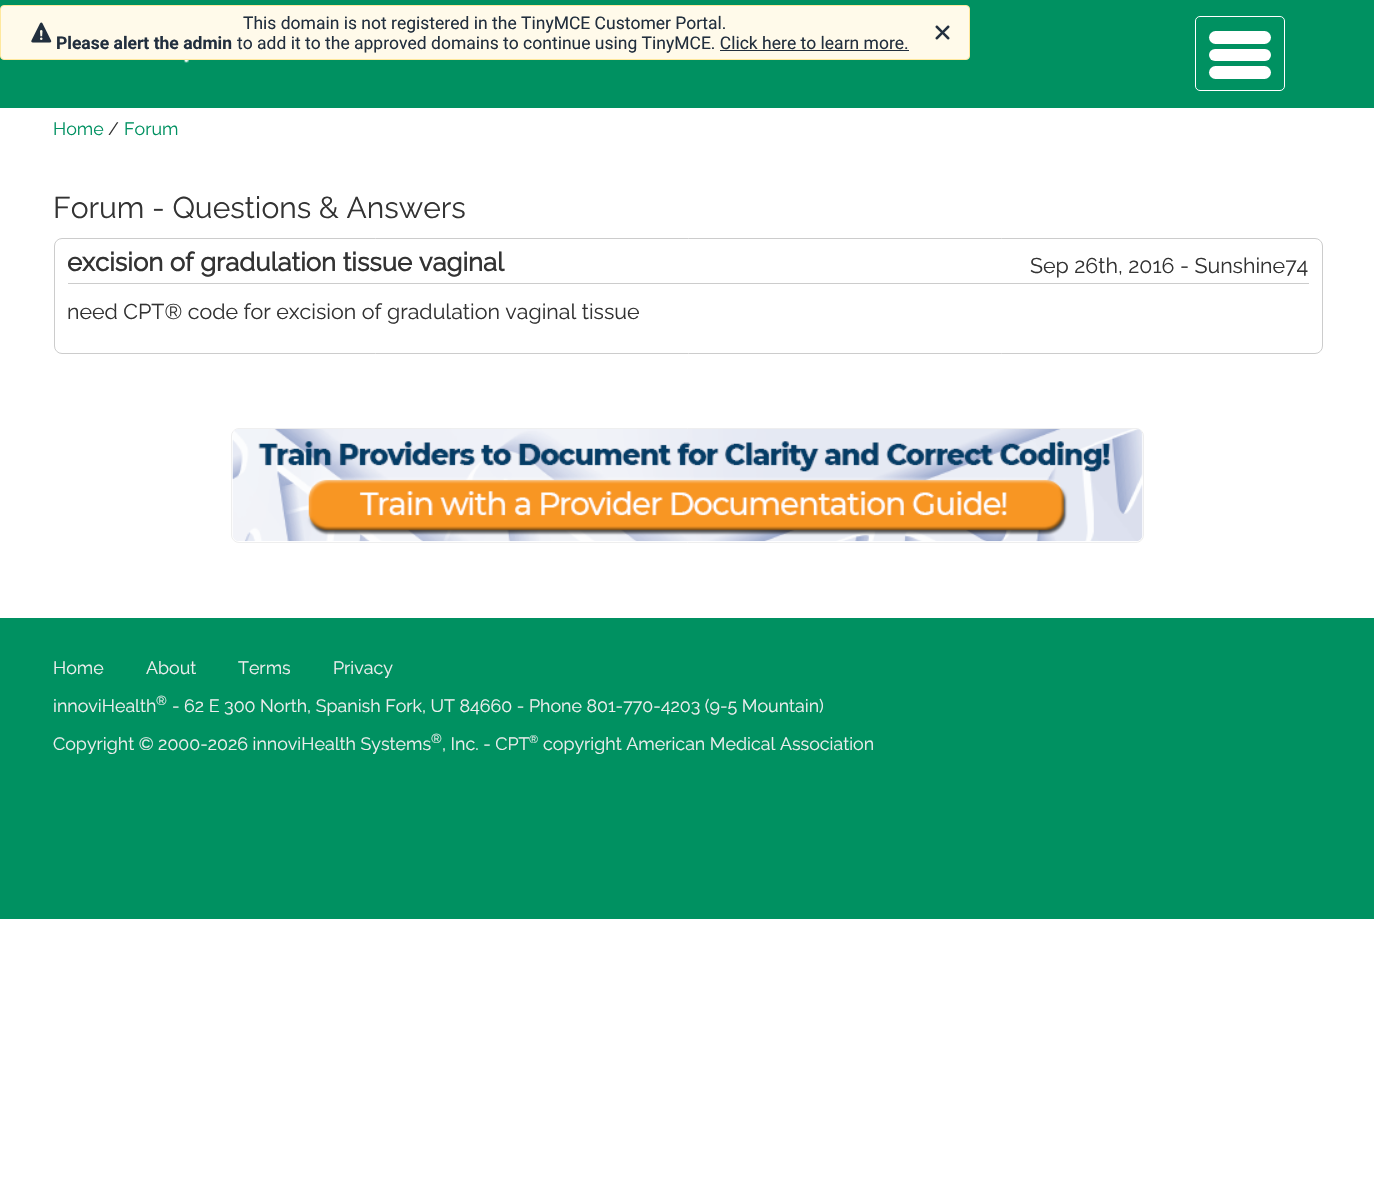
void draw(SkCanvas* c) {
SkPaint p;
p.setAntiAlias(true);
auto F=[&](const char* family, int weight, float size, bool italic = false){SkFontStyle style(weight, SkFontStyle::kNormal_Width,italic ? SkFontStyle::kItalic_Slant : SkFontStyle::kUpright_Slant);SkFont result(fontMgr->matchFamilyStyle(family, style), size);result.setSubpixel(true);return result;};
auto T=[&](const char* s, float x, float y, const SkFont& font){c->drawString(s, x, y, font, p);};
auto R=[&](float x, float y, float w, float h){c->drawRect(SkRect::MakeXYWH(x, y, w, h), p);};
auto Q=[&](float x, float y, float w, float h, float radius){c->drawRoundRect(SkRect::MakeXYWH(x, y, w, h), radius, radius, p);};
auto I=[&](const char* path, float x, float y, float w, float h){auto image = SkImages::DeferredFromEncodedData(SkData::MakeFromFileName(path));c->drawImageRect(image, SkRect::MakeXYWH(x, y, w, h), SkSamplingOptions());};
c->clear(0xffffffff);
p.setColor(0xff009161);
R(0,0,1374,108);
I("1.png",183,60,6,3);
p.setStroke(true);
p.setStrokeWidth(1);
p.setColor(0xffffffff);
c->drawRoundRect(SkRect::MakeXYWH(1195.5,16.5,89,74),4.5,4.5,p);
p.setStroke(false);
Q(1209,31,62,13,6.5);
Q(1209,49,62,12,6);
Q(1209,66,62,13,6.5);
p.setColor(0xfffffaea);
c->drawRoundRect(SkRect::MakeXYWH(.5,5.5,969,54),3.5,3.5,p);
p.setStroke(true);
p.setColor(0xffffe89d);
c->drawRoundRect(SkRect::MakeXYWH(.5,5.5,969,54),3.5,3.5,p);
I("2.png",31,22,21,21);
auto f1 = F("Roboto",400,17.5);
p.setStroke(false);
p.setColor(0xff222f3e);
T("This domain is not registered in the TinyMCE Customer Portal.",243,29,f1);
auto f2 = F("Roboto",700,17.5);
T("Please alert the admin",56,49,f2);
T("to add it to the approved domains to continue using TinyMCE. Click here to learn more.",237,49,f1);
R(720,50,189,1);
I("3.png",935,25,15,15);
auto f3 = F("Raleway",100,17.85);
p.setColor(0xff009161);
T("Home",53,135,f3);
p.setColor(0xff333333);
T("/",108,135,f3);
p.setColor(0xff009161);
T("Forum",124,135,f3);
auto f4 = F("Raleway",100,30);
p.setColor(0xff333333);
T("Forum - Questions & Answers",53,218,f4);
p.setStroke(true);
p.setColor(0xffcccccc);
c->drawRoundRect(SkRect::MakeXYWH(54.5,238.5,1268,115),7.5,7.5,p);
p.setStroke(false);
R(68,283,1241,1);
auto f5 = F("Raleway",700,25.75);
p.setColor(0xff333333);
T("excision of gradulation tissue vaginal",67,271,f5);
auto f6 = F("Raleway",100,21.4);
T("Sep 26th, 2016 - Sunshine74",1030,273,f6);
T("need CPT® code for excision of gradulation vaginal tissue",67,319,f6);
p.setStroke(true);
p.setColor(0xffeeeeee);
c->drawRoundRect(SkRect::MakeXYWH(231.5,428.5,912,114),7.5,7.5,p);
I("4.png",232,428,911,114);
p.setStroke(false);
p.setColor(0xff009161);
R(0,618,1374,301);
p.setColor(0xffeeeeee);
T("Home",53,674,f3);
T("About",146,674,f3);
T("Terms",238,674,f3);
T("Privacy",333,674,f3);
T("innoviHealth",53,712,f3);
auto f7 = F("Raleway",100,13);
T("®",156,705,f7);
T("- 62 E 300 North, Spanish Fork, UT 84660 - Phone 801-770-4203 (9-5 Mountain)",172,712,f3);
T("Copyright © 2000-2026 innoviHealth Systems",53,750,f3);
T("®",431,743,f7);
T(", Inc. - CPT",442,750,f3);
auto f8 = F("Raleway",100,11);
T("®",529,743,f8);
T("copyright American Medical Association",543,750,f3);
}
